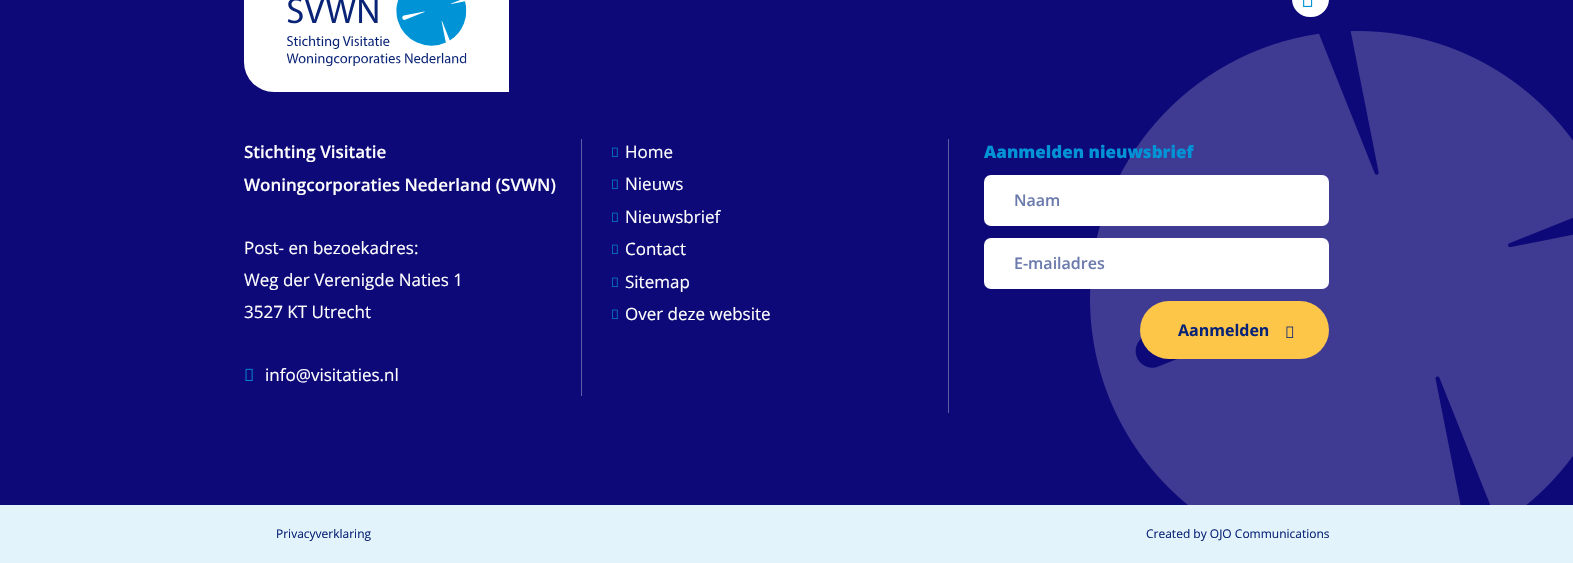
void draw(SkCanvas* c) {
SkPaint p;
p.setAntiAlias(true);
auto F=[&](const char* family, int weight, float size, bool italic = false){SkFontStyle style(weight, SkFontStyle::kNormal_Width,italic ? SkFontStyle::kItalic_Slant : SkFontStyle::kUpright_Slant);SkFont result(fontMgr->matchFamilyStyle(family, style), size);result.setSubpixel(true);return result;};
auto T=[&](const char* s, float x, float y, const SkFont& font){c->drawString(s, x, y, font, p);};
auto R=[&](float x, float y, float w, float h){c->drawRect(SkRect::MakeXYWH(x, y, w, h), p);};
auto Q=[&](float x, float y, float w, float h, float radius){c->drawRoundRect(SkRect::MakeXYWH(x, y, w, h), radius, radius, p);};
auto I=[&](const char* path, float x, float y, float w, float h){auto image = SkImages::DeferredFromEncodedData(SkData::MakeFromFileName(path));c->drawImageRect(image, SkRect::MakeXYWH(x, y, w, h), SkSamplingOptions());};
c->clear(0xffe3f3fb);
p.setColor(0xff0e0978);
R(0,0,1573,505);
I("1.png",244,0,265,92);
p.setColor(0xffffffff);
Q(1292,-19,37,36,18.5);
I("2.png",1303,0,10,7);
auto f1 = F("Open Sans",600,17);
T("Stichting Visitatie",244,158,f1);
T("Woningcorporaties Nederland (SVWN)",244,191,f1);
p.setColor(0xff605da6);
R(581,139,1,257);
auto f2 = F("Open Sans",400,17);
p.setColor(0xffffffff);
T("Post- en bezoekadres:",244,254,f2);
T("Weg der Verenigde Naties 1",244,286,f2);
T("3527 KT Utrecht",244,318,f2);
I("3.png",245,368,8,13);
T("info@visitaties.nl",265,381,f2);
I("4.png",612,147,6,10);
T("Home",625,158,f2);
I("4.png",612,179,6,10);
T("Nieuws",625,190,f2);
I("4.png",612,212,6,10);
T("Nieuwsbrief",625,223,f2);
I("4.png",612,244,6,10);
T("Contact",625,255,f2);
I("4.png",612,277,6,10);
T("Sitemap",625,288,f2);
I("4.png",612,309,6,10);
T("Over deze website",625,320,f2);
p.setColor(0xff605da6);
R(948,139,1,274);
I("6.png",1090,31,483,474);
auto f3 = F("Open Sans",800,17);
p.setColor(0xff0094d7);
T("Aanmelden nieuwsbrief",984,158,f3);
p.setColor(0xffffffff);
Q(984,175,345,51,7);
auto f4 = F("Open Sans",600,16);
p.setColor(0xff6b7bad);
T("Naam",1014,206,f4);
p.setColor(0xffffffff);
Q(984,238,345,51,7);
p.setColor(0xff6b7bad);
T("E-mailadres",1014,269,f4);
p.setColor(0xfffdc649);
Q(1140,301,189,58,29);
auto f5 = F("Open Sans",700,16);
p.setColor(0xff092376);
T("Aanmelden",1178,336,f5);
I("5.png",1286,326,8,12);
auto f6 = F("Open Sans",400,12);
T("Privacyverklaring",276,538,f6);
T("Created by OJO Communications",1146,538,f6);
}
